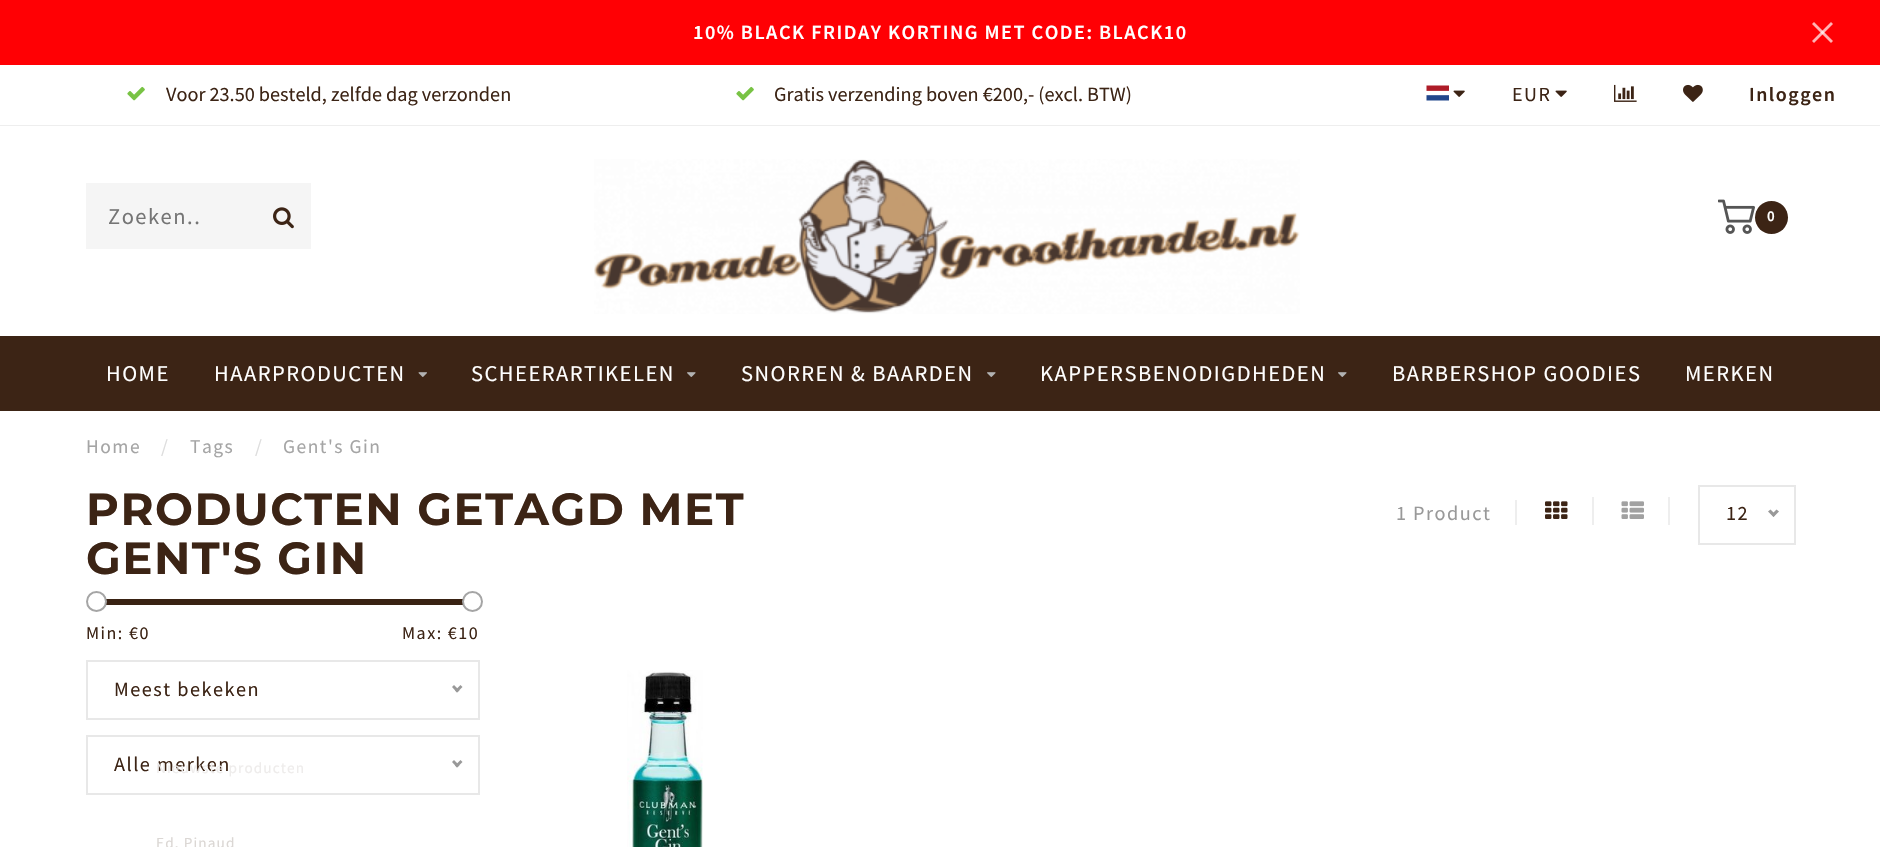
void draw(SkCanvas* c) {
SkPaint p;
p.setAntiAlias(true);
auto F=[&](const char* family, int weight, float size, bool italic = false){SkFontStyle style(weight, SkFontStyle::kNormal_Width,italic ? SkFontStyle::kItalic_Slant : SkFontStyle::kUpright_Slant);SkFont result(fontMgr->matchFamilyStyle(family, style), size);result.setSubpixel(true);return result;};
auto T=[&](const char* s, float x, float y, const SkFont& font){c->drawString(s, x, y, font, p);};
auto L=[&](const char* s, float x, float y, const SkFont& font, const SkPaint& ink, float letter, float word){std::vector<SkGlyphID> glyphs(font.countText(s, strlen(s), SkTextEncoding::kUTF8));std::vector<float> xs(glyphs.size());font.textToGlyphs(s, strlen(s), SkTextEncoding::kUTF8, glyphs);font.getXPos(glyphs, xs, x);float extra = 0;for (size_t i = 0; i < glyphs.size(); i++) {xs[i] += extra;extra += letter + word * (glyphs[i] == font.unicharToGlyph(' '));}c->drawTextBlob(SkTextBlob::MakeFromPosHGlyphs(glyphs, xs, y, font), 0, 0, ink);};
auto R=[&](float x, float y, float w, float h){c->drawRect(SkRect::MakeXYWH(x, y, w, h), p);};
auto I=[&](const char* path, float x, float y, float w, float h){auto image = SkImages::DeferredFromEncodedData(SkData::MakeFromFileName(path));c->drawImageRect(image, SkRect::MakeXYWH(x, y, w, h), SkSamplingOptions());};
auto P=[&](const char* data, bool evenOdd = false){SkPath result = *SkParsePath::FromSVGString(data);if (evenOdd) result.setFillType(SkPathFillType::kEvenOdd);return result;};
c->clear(0xffffffff);
p.setColor(0xffff0004);
R(0,0,1880,65);
auto f1 = F("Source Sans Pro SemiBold",600,20.25);
p.setColor(0xffffffff);
L("10% BLACK FRIDAY KORTING MET CODE: BLACK10",693,39,f1,p,1.5,0);
p.setColor(0xffffb3b4);
c->drawPath(P("M1814 22l19 19l-2 2l-19-19z"),p);
p.setColor(0xb3ffffff);
c->drawPath(P("M1812 41l19-19l2 2l-19 19z"),p);
p.setColor(0xffeeeeee);
R(0,125,1880,1);
I("1.png",127,86,18,15);
auto f2 = F("Source Sans Pro",400,20.25);
p.setColor(0xff3c2415);
T("Voor 23.50 besteld, zelfde dag verzonden",166,101,f2);
I("1.png",736,86,18,15);
T("Gratis verzending boven €200,- (excl. BTW)",774,101,f2);
I("2.png",1426,85,23,16);
I("3.png",1453,90,12,7);
auto f3 = F("Source Sans Pro",400,20);
L("EUR",1512,101,f3,p,1.5,0);
I("3.png",1555,90,12,7);
I("4.png",1614,84,23,18);
I("5.png",1683,84,20,18);
auto f4 = F("Source Sans Pro SemiBold",600,20);
L("Inloggen",1749,101,f4,p,1.5,0);
p.setColor(0xfff5f5f5);
R(86,183,225,66);
auto f5 = F("Source Sans Pro",400,22.5);
p.setColor(0xff757575);
L("Zoeken..",108,224,f5,p,1.5,0);
I("6.png",273,207,21,22);
I("7.png",594,159,706,155);
I("8.png",1718,199,37,35);
p.setColor(0xff3c2415);
c->drawCircle(1771.5,217.5,16.5,p);
auto f6 = F("Source Sans Pro SemiBold",600,15);
p.setColor(0xffffffff);
L("0",1767,221,f6,p,1.5,0);
p.setColor(0xff3c2415);
R(0,336,1880,75);
p.setColor(0xffffffff);
L("HOME",106,381,f5,p,1.5,0);
L("HAARPRODUCTEN",214,381,f5,p,1.5,0);
I("9.png",418,372,9,5);
L("SCHEERARTIKELEN",471,381,f5,p,1.5,0);
I("10.png",687,372,9,5);
L("SNORREN & BAARDEN",741,381,f5,p,1.5,0);
I("10.png",987,372,9,5);
L("KAPPERSBENODIGDHEDEN",1040,381,f5,p,1.5,0);
I("10.png",1338,372,9,5);
L("BARBERSHOP GOODIES",1392,381,f5,p,1.5,0);
L("MERKEN",1685,381,f5,p,1.5,0);
auto f7 = F("Source Sans Pro",400,19.5);
p.setColor(0xffa5a5a5);
L("Home",86,453,f7,p,1.5,0);
p.setColor(0xffdddddd);
L("/",161,453,f7,p,1.5,0);
p.setColor(0xffa5a5a5);
L("Tags",190,453,f7,p,1.5,0);
p.setColor(0xffdddddd);
L("/",255,453,f7,p,1.5,0);
p.setColor(0xffa5a5a5);
L("Gent's Gin",283,453,f7,p,1.5,0);
auto f8 = F("Montserrat",700,45);
p.setColor(0xff3c2415);
L("PRODUCTEN GETAGD MET",86,525,f8,p,1.5,0);
L("GENT'S GIN",86,574,f8,p,1.5,0);
p.setColor(0xff999999);
L("1 Product",1396,520,f2,p,1.5,0);
p.setColor(0xffeeeeee);
R(1515,500,2,25);
R(1592,497,2,28);
I("11.png",1545,501,23,18);
R(1668,497,2,28);
I("12.png",1621,501,23,18);
p.setStroke(true);
p.setStrokeWidth(2);
p.setColor(0xffe8e8e8);
c->drawRect(SkRect::MakeXYWH(1699,486,96,58),p);
p.setStroke(false);
p.setColor(0xff3c2415);
L("12",1726,520,f2,p,1.5,0);
p.setColor(0xff999999);
c->drawPath(P("M1776.5 509.5l2.5 2l-5.5 5.5l-2-2.5z"),p);
c->drawPath(P("M1770.5 509.5l5 5l-2 2.5l-5.5-5.5z"),p);
p.setColor(0xff392213);
R(101,599,362,6);
p.setColor(0xffffffff);
c->drawCircle(96.5,601.5,9.5,p);
p.setStroke(true);
p.setColor(0xffa5a5a5);
c->drawCircle(96.5,601.5,9.5,p);
p.setStroke(false);
p.setColor(0xffffffff);
c->drawCircle(472.5,601.5,9.5,p);
p.setStroke(true);
p.setColor(0xffa5a5a5);
c->drawCircle(472.5,601.5,9.5,p);
auto f9 = F("Source Sans Pro",400,18);
p.setStroke(false);
p.setColor(0xff3c2415);
L("Min: €0",86,639,f9,p,1.5,0);
L("Max: €10",402,639,f9,p,1.5,0);
p.setStroke(true);
p.setColor(0xffe8e8e8);
c->drawRect(SkRect::MakeXYWH(87,661,392,58),p);
p.setStroke(false);
p.setColor(0xff3c2415);
L("Meest bekeken",114,696,f2,p,1.5,0);
p.setColor(0xff999999);
c->drawPath(P("M460.5 685l2 2l-5.5 5.5l-2-2z"),p);
c->drawPath(P("M454 685l5.5 5.5l-2.5 2l-5-5.5z"),p);
p.setStroke(true);
p.setColor(0xffe8e8e8);
c->drawRect(SkRect::MakeXYWH(87,736,392,58),p);
p.setStroke(false);
p.setColor(0xff3c2415);
L("Alle merken",114,771,f2,p,1.5,0);
auto f10 = F("Source Sans Pro",400,15.25);
p.setColor(0xffeeeceb);
L("Nieuwste producten",156,773,f10,p,1.1,0);
p.setColor(0xff999999);
c->drawPath(P("M460.5 760l2 2l-5.5 5.5l-2-2z"),p);
c->drawPath(P("M454 760l5.5 5.5l-2.5 2l-5-5.5z"),p);
p.setColor(0xffdbd7d4);
L("Ed. Pinaud",156,848,f10,p,1.1,0);
I("13.png",627,670,76,177);
}
